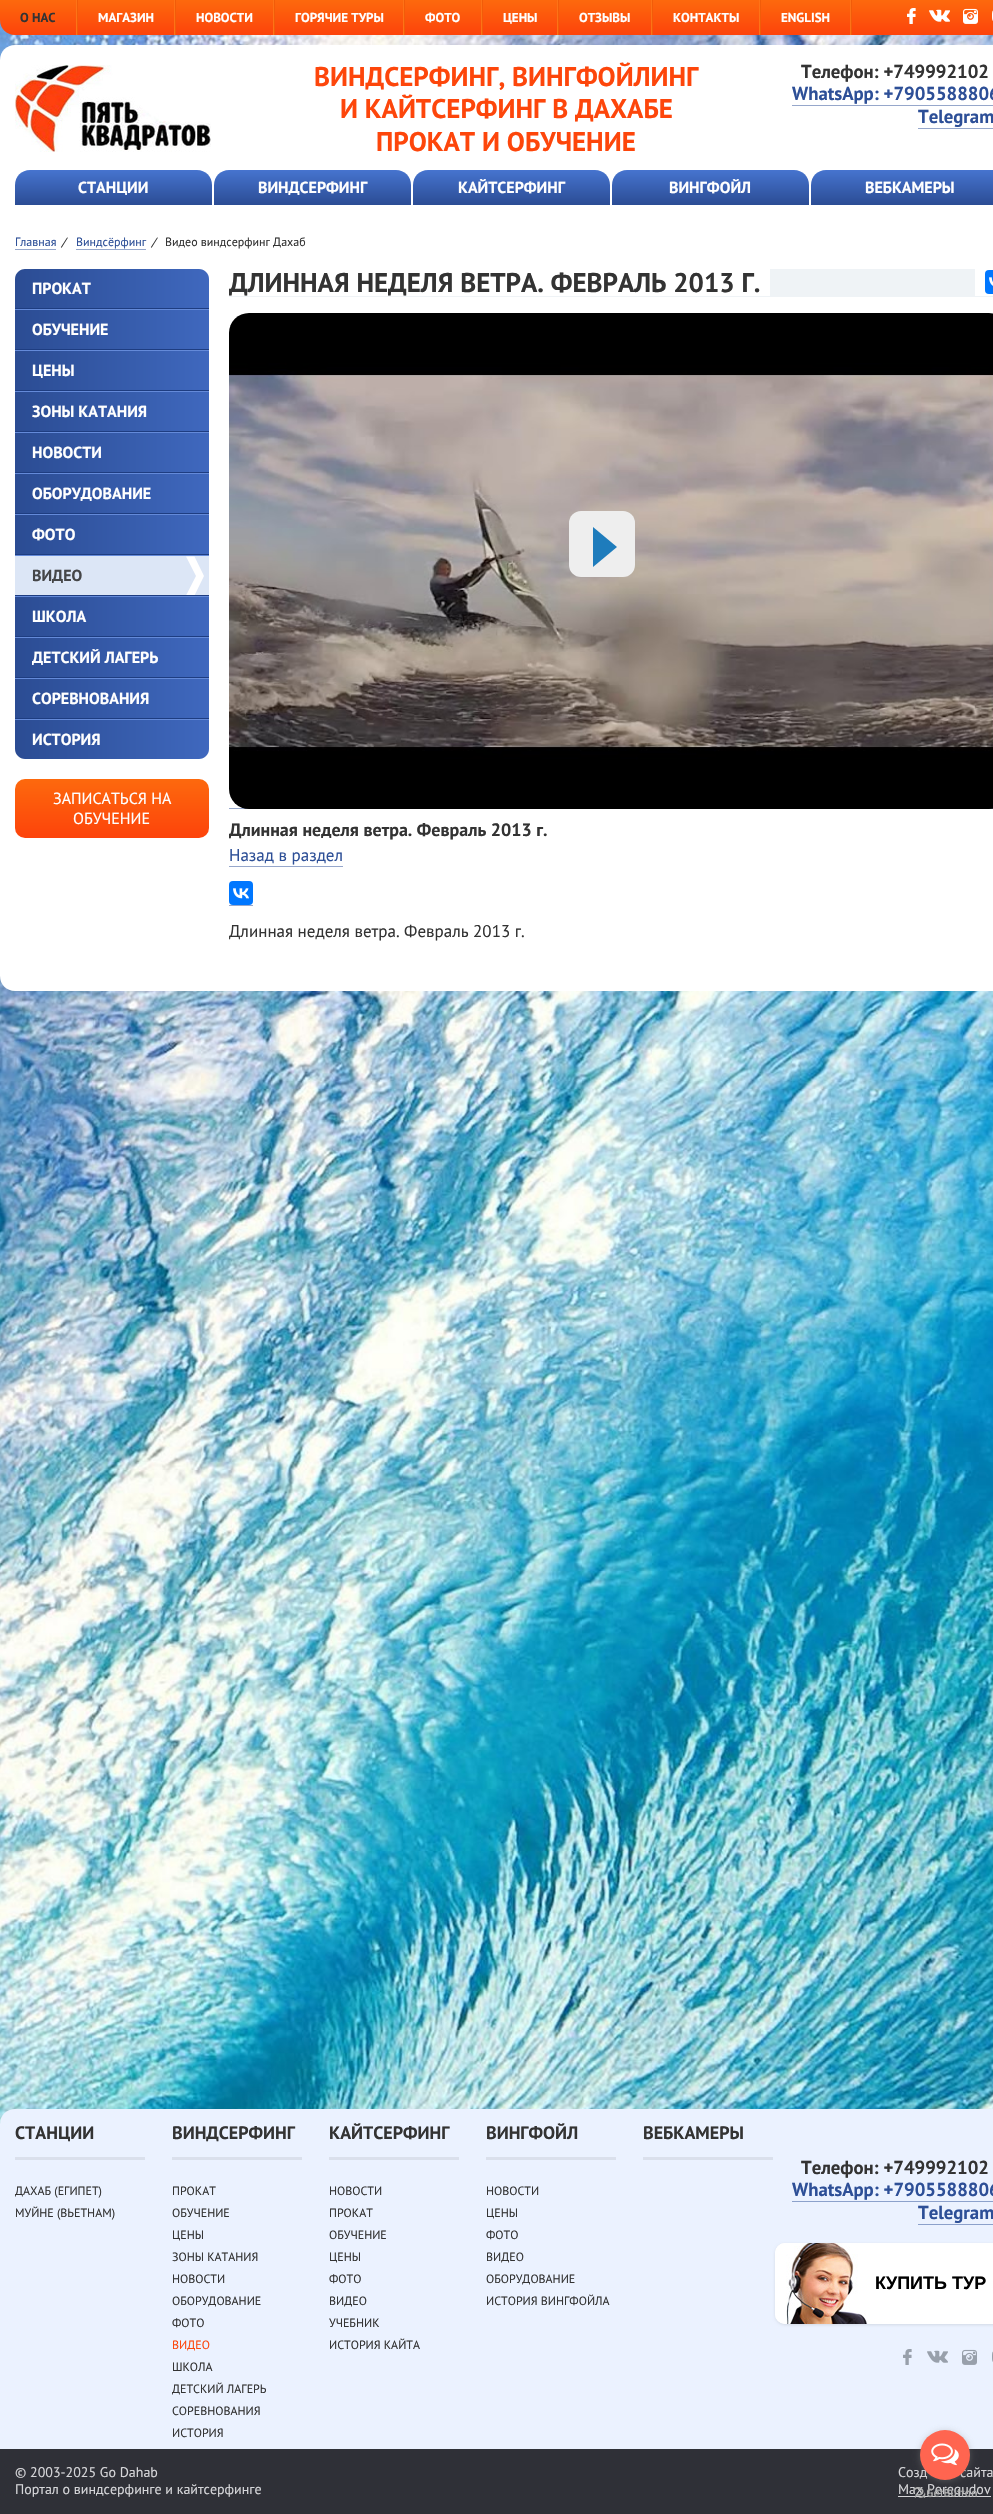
void draw(SkCanvas* c) {
SkPaint p;
p.setAntiAlias(true);
auto F=[&](const char* family, int weight, float size, bool italic = false){SkFontStyle style(weight, SkFontStyle::kNormal_Width,italic ? SkFontStyle::kItalic_Slant : SkFontStyle::kUpright_Slant);SkFont result(fontMgr->matchFamilyStyle(family, style), size);result.setSubpixel(true);return result;};
auto T=[&](const char* s, float x, float y, const SkFont& font){c->drawString(s, x, y, font, p);};
auto R=[&](float x, float y, float w, float h){c->drawRect(SkRect::MakeXYWH(x, y, w, h), p);};
auto Q=[&](float x, float y, float w, float h, float radius){c->drawRoundRect(SkRect::MakeXYWH(x, y, w, h), radius, radius, p);};
auto I=[&](const char* path, float x, float y, float w, float h){auto image = SkImages::DeferredFromEncodedData(SkData::MakeFromFileName(path));c->drawImageRect(image, SkRect::MakeXYWH(x, y, w, h), SkSamplingOptions());};
auto P=[&](const char* data, bool evenOdd = false){SkPath result = *SkParsePath::FromSVGString(data);if (evenOdd) result.setFillType(SkPathFillType::kEvenOdd);return result;};
c->clear(0xffffffff);
I("1.png",0,20,993,2104);
{
const SkColor colors[] = {0xfffd690d,0xfffd430b};
const float stops[] = {0,1};
const SkPoint ends[] = {{512,0}, {512,35}};
p.setShader(SkGradientShader::MakeLinear(ends, colors, stops, 2, SkTileMode::kClamp));
p.setAlpha(255);
}
c->drawPath(P("M0 0h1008v20c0 8.5-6.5 15-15 15h-978c-8.5 0-15-6.5-15-15z"),p);
p.setShader(nullptr);
p.setColor(0xfff15c09);
R(851,0,1,35);
p.setColor(0xfffe7317);
R(76,0,1,35);
auto f1 = F("PT Sans",700,13);
p.setColor(0xff333333);
T("О НАС",20,22,f1);
p.setColor(0xfffe7317);
R(174,0,1,35);
p.setColor(0xfff15c09);
R(77,0,1,35);
p.setColor(0xffffffff);
T("МАГАЗИН",98,22,f1);
p.setColor(0xfffe7317);
R(273,0,1,35);
p.setColor(0xfff15c09);
R(175,0,1,35);
p.setColor(0xffffffff);
T("НОВОСТИ",196,22,f1);
p.setColor(0xfffe7317);
R(403,0,1,35);
p.setColor(0xfff15c09);
R(274,0,1,35);
p.setColor(0xffffffff);
T("ГОРЯЧИЕ ТУРЫ",295,22,f1);
p.setColor(0xfffe7317);
R(481,0,1,35);
p.setColor(0xfff15c09);
R(404,0,1,35);
p.setColor(0xffffffff);
T("ФОТО",425,22,f1);
p.setColor(0xfffe7317);
R(557,0,1,35);
p.setColor(0xfff15c09);
R(482,0,1,35);
p.setColor(0xffffffff);
T("ЦЕНЫ",503,22,f1);
p.setColor(0xfffe7317);
R(651,0,1,35);
p.setColor(0xfff15c09);
R(558,0,1,35);
p.setColor(0xffffffff);
T("ОТЗЫВЫ",579,22,f1);
p.setColor(0xfffe7317);
R(759,0,1,35);
p.setColor(0xfff15c09);
R(652,0,1,35);
p.setColor(0xffffffff);
T("КОНТАКТЫ",673,22,f1);
p.setColor(0xfffe7317);
R(850,0,1,35);
p.setColor(0xfff15c09);
R(760,0,1,35);
p.setColor(0xffffffff);
T("ENGLISH",781,22,f1);
I("2.png",907,8,9,16);
I("3.png",929,9,21,13);
I("4.png",963,8,15,16);
I("5.png",992,10,1,11);
c->drawPath(P("M15 45h978c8.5 0 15 6.5 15 15v110h-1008v-110c0-8.5 6.5-15 15-15z"),p);
I("6.png",15,65,196,87);
auto f2 = F("PT Sans",700,27);
p.setColor(0xfffd460b);
T("ВИНДСЕРФИНГ, ВИНГФОЙЛИНГ",314,86,f2);
T("И КАЙТСЕРФИНГ В ДАХАБЕ",340,118,f2);
T("ПРОКАТ И ОБУЧЕНИЕ",376,151,f2);
auto f3 = F("PT Sans",700,18.75);
p.setColor(0xff333333);
T("Телефон: +749992102",801,78,f3);
p.setColor(0xff2d4f97);
T("WhatsApp: +7905588806",792,100,f3);
p.setColor(0xff96a7cb);
R(792,105,201,1);
p.setColor(0xff2d4f97);
T("Telegram",918,123,f3);
p.setColor(0xff96a7cb);
R(918,128,75,1);
p.setColor(0xffffffff);
R(0,170,826,35);
{
const SkColor colors[] = {0xff4674cf,0xff2b4c94};
const float stops[] = {0,1};
const SkPoint ends[] = {{114,170}, {114,205}};
p.setShader(SkGradientShader::MakeLinear(ends, colors, stops, 2, SkTileMode::kClamp));
p.setAlpha(255);
}
c->drawPath(P("M30 170h167c8.5 0 15 6.5 15 15v20h-197v-20c0-8.5 6.5-15 15-15z"),p);
auto f4 = F("PT Sans",700,16);
p.setShader(nullptr);
p.setColor(0xffffffff);
T("СТАНЦИИ",78,193,f4);
{
const SkColor colors[] = {0xff4674cf,0xff2b4c94};
const float stops[] = {0,1};
const SkPoint ends[] = {{313,170}, {313,205}};
p.setShader(SkGradientShader::MakeLinear(ends, colors, stops, 2, SkTileMode::kClamp));
p.setAlpha(255);
}
c->drawPath(P("M229 170h167c8.5 0 15 6.5 15 15v20h-197v-20c0-8.5 6.5-15 15-15z"),p);
p.setShader(nullptr);
p.setColor(0xffffffff);
T("ВИНДСЕРФИНГ",258,193,f4);
{
const SkColor colors[] = {0xff4674cf,0xff2b4c94};
const float stops[] = {0,1};
const SkPoint ends[] = {{512,170}, {512,205}};
p.setShader(SkGradientShader::MakeLinear(ends, colors, stops, 2, SkTileMode::kClamp));
p.setAlpha(255);
}
c->drawPath(P("M428 170h167c8.5 0 15 6.5 15 15v20h-197v-20c0-8.5 6.5-15 15-15z"),p);
p.setShader(nullptr);
p.setColor(0xffffffff);
T("КАЙТСЕРФИНГ",458,193,f4);
{
const SkColor colors[] = {0xff4674cf,0xff2b4c94};
const float stops[] = {0,1};
const SkPoint ends[] = {{711,170}, {711,205}};
p.setShader(SkGradientShader::MakeLinear(ends, colors, stops, 2, SkTileMode::kClamp));
p.setAlpha(255);
}
c->drawPath(P("M627 170h167c8.5 0 15 6.5 15 15v20h-197v-20c0-8.5 6.5-15 15-15z"),p);
p.setShader(nullptr);
p.setColor(0xffffffff);
T("ВИНГФОЙЛ",669,193,f4);
{
const SkColor colors[] = {0xff4674cf,0xff2b4c94};
const float stops[] = {0,1};
const SkPoint ends[] = {{910,170}, {910,205}};
p.setShader(SkGradientShader::MakeLinear(ends, colors, stops, 2, SkTileMode::kClamp));
p.setAlpha(255);
}
c->drawPath(P("M826 170h167c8.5 0 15 6.5 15 15v20h-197v-20c0-8.5 6.5-15 15-15z"),p);
p.setShader(nullptr);
p.setColor(0xffffffff);
T("ВЕБКАМЕРЫ",865,193,f4);
c->drawPath(P("M0 205h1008v771c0 8.5-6.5 15-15 15h-978c-8.5 0-15-6.5-15-15z"),p);
auto f5 = F("PT Sans",400,12);
p.setColor(0xff2d4f97);
T("Главная",15,246,f5);
p.setColor(0xff96a7cb);
R(15,249,41,1);
auto f6 = F("PT Sans",400,12,true);
p.setColor(0xff333333);
T("/",62,246,f6);
p.setColor(0xff2d4f97);
T("Виндсёрфинг",76,246,f5);
p.setColor(0xff96a7cb);
R(76,249,70,1);
p.setColor(0xff333333);
T("/",152,246,f6);
T("Видео виндсерфинг Дахаб",165,246,f5);
{
const SkColor colors[] = {0xff2b4c93,0xff3f68be};
const float stops[] = {0,1};
const SkPoint ends[] = {{15,289}, {209,289}};
p.setShader(SkGradientShader::MakeLinear(ends, colors, stops, 2, SkTileMode::kClamp));
p.setAlpha(255);
}
c->drawPath(P("M25 269h174c5.5 0 10 4.5 10 10v29h-194v-29c0-5.5 4.5-10 10-10z"),p);
p.setShader(nullptr);
p.setColor(0xffffffff);
T("ПРОКАТ",32,294,f4);
p.setColor(0xff1e3d81);
R(15,308,194,1);
p.setColor(0xff648ad9);
R(15,309,194,1);
{
const SkColor colors[] = {0xff2b4c93,0xff3f68be};
const float stops[] = {0,1};
const SkPoint ends[] = {{15,330}, {209,330}};
p.setShader(SkGradientShader::MakeLinear(ends, colors, stops, 2, SkTileMode::kClamp));
p.setAlpha(255);
}
R(15,310,194,39);
p.setShader(nullptr);
p.setColor(0xffffffff);
T("ОБУЧЕНИЕ",32,335,f4);
p.setColor(0xff1e3d81);
R(15,349,194,1);
p.setColor(0xff648ad9);
R(15,350,194,1);
{
const SkColor colors[] = {0xff2b4c93,0xff3f68be};
const float stops[] = {0,1};
const SkPoint ends[] = {{15,371}, {209,371}};
p.setShader(SkGradientShader::MakeLinear(ends, colors, stops, 2, SkTileMode::kClamp));
p.setAlpha(255);
}
R(15,351,194,39);
p.setShader(nullptr);
p.setColor(0xffffffff);
T("ЦЕНЫ",32,376,f4);
p.setColor(0xff1e3d81);
R(15,390,194,1);
p.setColor(0xff648ad9);
R(15,391,194,1);
{
const SkColor colors[] = {0xff2b4c93,0xff3f68be};
const float stops[] = {0,1};
const SkPoint ends[] = {{15,412}, {209,412}};
p.setShader(SkGradientShader::MakeLinear(ends, colors, stops, 2, SkTileMode::kClamp));
p.setAlpha(255);
}
R(15,392,194,39);
p.setShader(nullptr);
p.setColor(0xffffffff);
T("ЗОНЫ КАТАНИЯ",32,417,f4);
p.setColor(0xff1e3d81);
R(15,431,194,1);
p.setColor(0xff648ad9);
R(15,432,194,1);
{
const SkColor colors[] = {0xff2b4c93,0xff3f68be};
const float stops[] = {0,1};
const SkPoint ends[] = {{15,453}, {209,453}};
p.setShader(SkGradientShader::MakeLinear(ends, colors, stops, 2, SkTileMode::kClamp));
p.setAlpha(255);
}
R(15,433,194,39);
p.setShader(nullptr);
p.setColor(0xffffffff);
T("НОВОСТИ",32,458,f4);
p.setColor(0xff1e3d81);
R(15,472,194,1);
p.setColor(0xff648ad9);
R(15,473,194,1);
{
const SkColor colors[] = {0xff2b4c93,0xff3f68be};
const float stops[] = {0,1};
const SkPoint ends[] = {{15,494}, {209,494}};
p.setShader(SkGradientShader::MakeLinear(ends, colors, stops, 2, SkTileMode::kClamp));
p.setAlpha(255);
}
R(15,474,194,39);
p.setShader(nullptr);
p.setColor(0xffffffff);
T("ОБОРУДОВАНИЕ",32,499,f4);
p.setColor(0xff1e3d81);
R(15,513,194,1);
p.setColor(0xff648ad9);
R(15,514,194,1);
{
const SkColor colors[] = {0xff2b4c93,0xff3f68be};
const float stops[] = {0,1};
const SkPoint ends[] = {{15,535}, {209,535}};
p.setShader(SkGradientShader::MakeLinear(ends, colors, stops, 2, SkTileMode::kClamp));
p.setAlpha(255);
}
R(15,515,194,39);
p.setShader(nullptr);
p.setColor(0xffffffff);
T("ФОТО",32,540,f4);
p.setColor(0xff1e3d81);
R(15,554,194,1);
p.setColor(0xff648ad9);
R(15,555,194,1);
p.setColor(0xffdce6f6);
R(15,556,194,39);
p.setColor(0xff454648);
T("ВИДЕО",32,581,f4);
p.setColor(0xffffffff);
c->drawPath(P("M186 595.5l10-19.5l-10-19.5h8.5l9.5 19.5l-9.5 19.5z"),p);
p.setColor(0xff1e3d81);
R(15,595,194,1);
p.setColor(0xff648ad9);
R(15,596,194,1);
{
const SkColor colors[] = {0xff2b4c93,0xff3f68be};
const float stops[] = {0,1};
const SkPoint ends[] = {{15,617}, {209,617}};
p.setShader(SkGradientShader::MakeLinear(ends, colors, stops, 2, SkTileMode::kClamp));
p.setAlpha(255);
}
R(15,597,194,39);
p.setShader(nullptr);
p.setColor(0xffffffff);
T("ШКОЛА",32,622,f4);
p.setColor(0xff1e3d81);
R(15,636,194,1);
p.setColor(0xff648ad9);
R(15,637,194,1);
{
const SkColor colors[] = {0xff2b4c93,0xff3f68be};
const float stops[] = {0,1};
const SkPoint ends[] = {{15,658}, {209,658}};
p.setShader(SkGradientShader::MakeLinear(ends, colors, stops, 2, SkTileMode::kClamp));
p.setAlpha(255);
}
R(15,638,194,39);
p.setShader(nullptr);
p.setColor(0xffffffff);
T("ДЕТСКИЙ ЛАГЕРЬ",32,663,f4);
p.setColor(0xff1e3d81);
R(15,677,194,1);
p.setColor(0xff648ad9);
R(15,678,194,1);
{
const SkColor colors[] = {0xff2b4c93,0xff3f68be};
const float stops[] = {0,1};
const SkPoint ends[] = {{15,699}, {209,699}};
p.setShader(SkGradientShader::MakeLinear(ends, colors, stops, 2, SkTileMode::kClamp));
p.setAlpha(255);
}
R(15,679,194,39);
p.setShader(nullptr);
p.setColor(0xffffffff);
T("СОРЕВНОВАНИЯ",32,704,f4);
p.setColor(0xff1e3d81);
R(15,718,194,1);
p.setColor(0xff648ad9);
R(15,719,194,1);
{
const SkColor colors[] = {0xff2b4c93,0xff3f68be};
const float stops[] = {0,1};
const SkPoint ends[] = {{15,740}, {209,740}};
p.setShader(SkGradientShader::MakeLinear(ends, colors, stops, 2, SkTileMode::kClamp));
p.setAlpha(255);
}
c->drawPath(P("M15 720h194v29c0 5.5-4.5 10-10 10h-174c-5.5 0-10-4.5-10-10z"),p);
p.setShader(nullptr);
p.setColor(0xffffffff);
T("ИСТОРИЯ",32,745,f4);
{
const SkColor colors[] = {0xfffd690d,0xfffd430b};
const float stops[] = {0,1};
const SkPoint ends[] = {{112,779}, {112,838}};
p.setShader(SkGradientShader::MakeLinear(ends, colors, stops, 2, SkTileMode::kClamp));
p.setAlpha(255);
}
Q(15,779,194,59,10);
auto f7 = F("PT Sans",400,16);
p.setShader(nullptr);
p.setColor(0xffffffff);
T("ЗАПИСАТЬСЯ НА",53,804,f7);
T("ОБУЧЕНИЕ",73,824,f7);
p.setColor(0xffeff3f6);
R(229,269,764,28);
p.setColor(0xffffffff);
R(229,269,541,27);
p.setColor(0xff333333);
T("ДЛИННАЯ НЕДЕЛЯ ВЕТРА. ФЕВРАЛЬ 2013 Г.",229,292,f2);
p.setColor(0xffffffff);
R(975,269,18,27);
p.setColor(0xff0077ff);
Q(985,270,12,24,4);
I("7.png",989,277,4,9);
p.setColor(0xff96a7cb);
R(229,808,764,1);
I("8.png",229,313,764,496);
p.setColor(0xffeeeeee);
Q(569,511,66,66,12);
p.setColor(0xff1e7cbc);
c->drawPath(P("M593 567v-40l24 20z"),p);
auto f8 = F("PT Sans",700,18);
p.setColor(0xff333333);
T("Длинная неделя ветра. Февраль 2013 г.",229,836,f8);
auto f9 = F("PT Sans",400,17);
p.setColor(0xff2d4f97);
T("Назад в раздел",229,861,f9);
p.setColor(0xff96a7cb);
R(229,866,114,1);
R(229,905,24,1);
p.setColor(0xff0077ff);
Q(229,881,24,24,4);
I("9.png",233,888,16,11);
p.setColor(0xff333333);
T("Длинная неделя ветра. Февраль 2013 г.",229,937,f9);
p.setColor(0xffebf2ff);
c->drawPath(P("M15 2109h978c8.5 0 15 6.5 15 15v325h-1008v-325c0-8.5 6.5-15 15-15z"),p);
p.setColor(0xffdae0ec);
R(15,2157,130,3);
p.setColor(0xff333333);
T("СТАНЦИИ",15,2139,f8);
T("ДАХАБ (ЕГИПЕТ)",15,2195,f5);
T("МУЙНЕ (ВЬЕТНАМ)",15,2217,f5);
p.setColor(0xffdae0ec);
R(172,2157,130,3);
p.setColor(0xff333333);
T("ВИНДСЕРФИНГ",172,2139,f8);
T("ПРОКАТ",172,2195,f5);
T("ОБУЧЕНИЕ",172,2217,f5);
T("ЦЕНЫ",172,2239,f5);
T("ЗОНЫ КАТАНИЯ",172,2261,f5);
T("НОВОСТИ",172,2283,f5);
T("ОБОРУДОВАНИЕ",172,2305,f5);
T("ФОТО",172,2327,f5);
p.setColor(0xfffd460b);
T("ВИДЕО",172,2349,f5);
p.setColor(0xff333333);
T("ШКОЛА",172,2371,f5);
T("ДЕТСКИЙ ЛАГЕРЬ",172,2393,f5);
T("СОРЕВНОВАНИЯ",172,2415,f5);
T("ИСТОРИЯ",172,2437,f5);
p.setColor(0xffdae0ec);
R(329,2157,130,3);
p.setColor(0xff333333);
T("КАЙТСЕРФИНГ",329,2139,f8);
T("НОВОСТИ",329,2195,f5);
T("ПРОКАТ",329,2217,f5);
T("ОБУЧЕНИЕ",329,2239,f5);
T("ЦЕНЫ",329,2261,f5);
T("ФОТО",329,2283,f5);
T("ВИДЕО",329,2305,f5);
T("УЧЕБНИК",329,2327,f5);
T("ИСТОРИЯ КАЙТА",329,2349,f5);
p.setColor(0xffdae0ec);
R(486,2157,130,3);
p.setColor(0xff333333);
T("ВИНГФОЙЛ",486,2139,f8);
T("НОВОСТИ",486,2195,f5);
T("ЦЕНЫ",486,2217,f5);
T("ФОТО",486,2239,f5);
T("ВИДЕО",486,2261,f5);
T("ОБОРУДОВАНИЕ",486,2283,f5);
T("ИСТОРИЯ ВИНГФОЙЛА",486,2305,f5);
p.setColor(0xffdae0ec);
R(643,2157,130,3);
p.setColor(0xff333333);
T("ВЕБКАМЕРЫ",643,2139,f8);
T("Телефон: +749992102",801,2174,f3);
p.setColor(0xff2d4f97);
T("WhatsApp: +7905588806",792,2196,f3);
p.setColor(0xff8ca1cb);
R(792,2201,201,1);
p.setColor(0xff2d4f97);
T("Telegram",918,2219,f3);
p.setColor(0xff8ca1cb);
R(918,2224,75,1);
p.setColor(0x1a000000);
p.setMaskFilter(SkMaskFilter::MakeBlur(kNormal_SkBlurStyle, 1.5));
c->drawRoundRect(SkRect::MakeXYWH(775,2244,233,81),10,10,p);
p.setMaskFilter(nullptr);
p.setColor(0xffffffff);
Q(775,2243,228,81,10);
I("10.png",775,2243,93,81);
auto f10 = F("Liberation Sans",700,18);
p.setColor(0xff000000);
T("КУПИТЬ ТУР",875,2289,f10);
I("11.png",903,2349,9,16);
I("12.png",927,2350,21,13);
I("13.png",962,2349,15,16);
I("14.png",992,2351,1,11);
p.setColor(0xff2f3037);
R(0,2449,993,65);
auto f11 = F("PT Sans",400,14);
p.setColor(0xffd6d6d9);
T("© 2003-2025 Go Dahab",15,2477,f11);
T("Портал о виндсерфинге и кайтсерфинге",15,2494,f11);
T("Созд",898,2477,f11);
T("сайта",960,2477,f11);
R(898,2496,93,1);
T("Max Peregudov",898,2494,f11);
I("16.png",913,2487,64,11);
p.setColor(0x66888888);
p.setMaskFilter(SkMaskFilter::MakeBlur(kNormal_SkBlurStyle, 3.5));
c->drawRoundRect(SkRect::MakeXYWH(920,2431,50,50),25,25,p);
p.setMaskFilter(nullptr);
p.setColor(0xffff6550);
c->drawCircle(945,2455,25,p);
I("15.png",931,2443,28,23);
}
